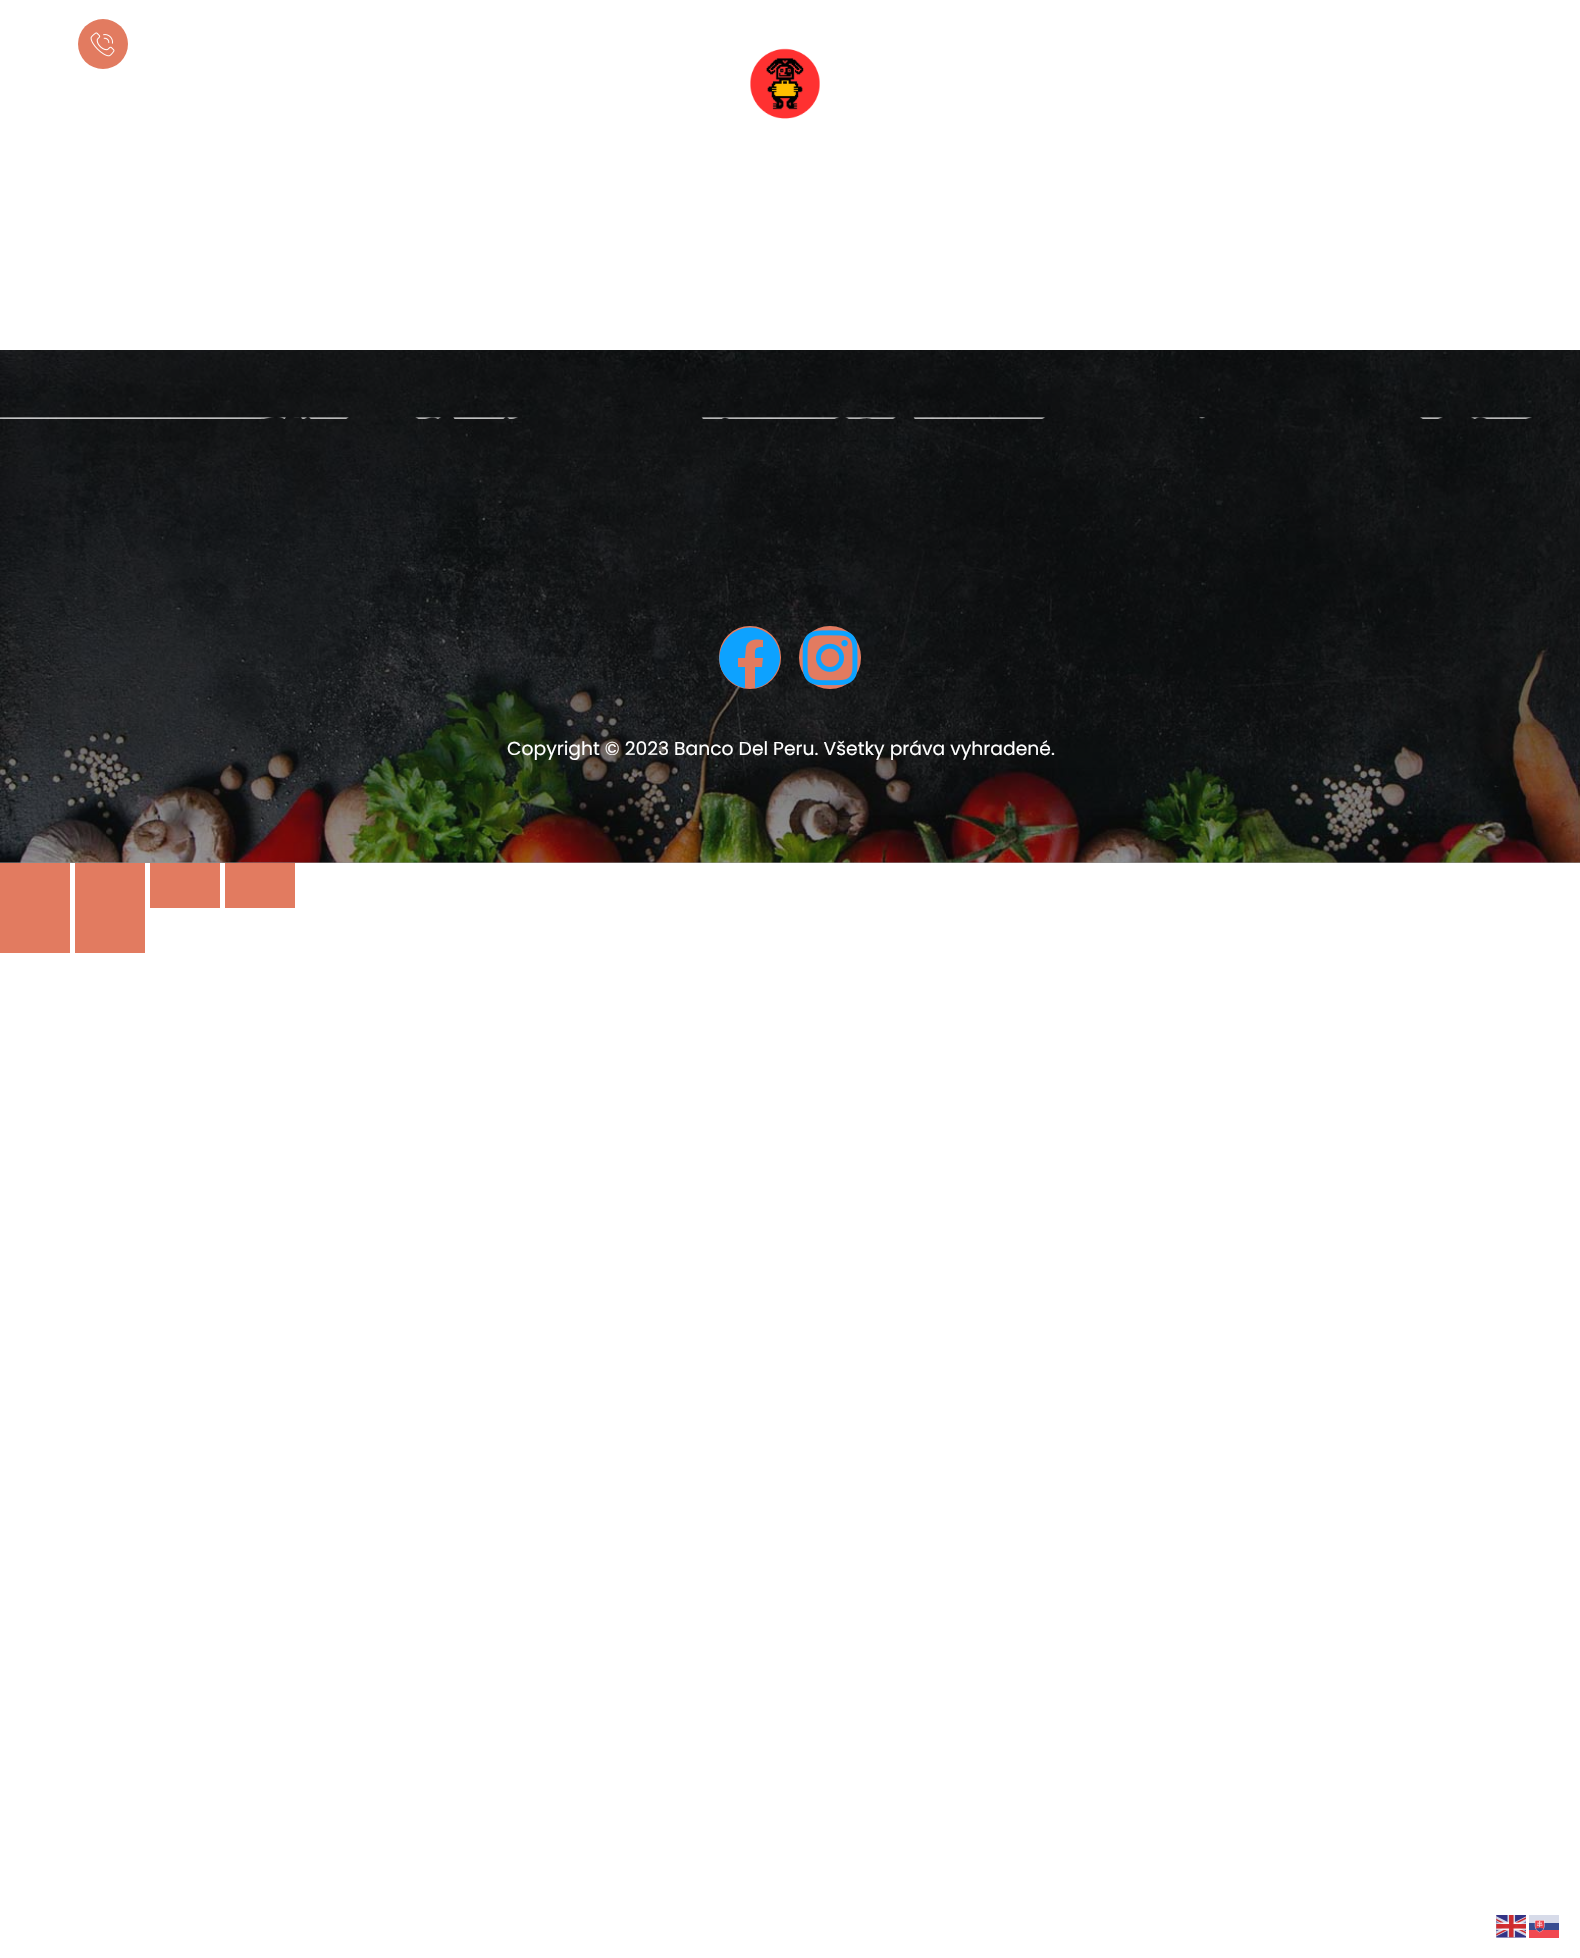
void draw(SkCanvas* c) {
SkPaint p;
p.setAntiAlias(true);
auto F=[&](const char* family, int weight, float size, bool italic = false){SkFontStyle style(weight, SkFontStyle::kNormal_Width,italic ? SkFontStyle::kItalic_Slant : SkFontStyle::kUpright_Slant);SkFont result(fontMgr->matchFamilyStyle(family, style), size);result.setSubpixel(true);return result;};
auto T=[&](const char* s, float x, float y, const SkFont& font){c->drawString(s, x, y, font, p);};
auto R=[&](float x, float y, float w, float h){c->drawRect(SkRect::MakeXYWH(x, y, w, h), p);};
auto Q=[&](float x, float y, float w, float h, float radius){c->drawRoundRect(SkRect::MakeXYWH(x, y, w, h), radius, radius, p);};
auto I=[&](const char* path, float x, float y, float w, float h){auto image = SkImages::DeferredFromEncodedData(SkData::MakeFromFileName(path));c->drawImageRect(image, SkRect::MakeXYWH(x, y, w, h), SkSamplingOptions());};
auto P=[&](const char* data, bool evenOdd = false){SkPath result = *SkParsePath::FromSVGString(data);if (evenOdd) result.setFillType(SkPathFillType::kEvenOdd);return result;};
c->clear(0xffffffff);
p.setColor(0xffe27b60);
c->drawCircle(103,44,25,p);
I("1.png",90,32,25,25);
I("2.png",750,48,70,71);
I("4.png",0,350,1580,513);
{
const SkColor colors[] = {0x99111111,0x70111111};
const float stops[] = {.75,1};
const SkPoint ends[] = {{790,350}, {790,863}};
p.setShader(SkGradientShader::MakeLinear(ends, colors, stops, 2, SkTileMode::kClamp));
p.setAlpha(255);
}
R(0,350,1580,513);
I("3.png",0,417,1532,2);
p.setShader(nullptr);
p.setColor(0xffe27b60);
Q(719,626,62,63,31);
p.setColor(0xff0da2ff);
c->drawPath(P("M780 658c0 14-11 28-25 30v-21h7l1-9h-8c0-9-1-11 8-11v-7c-6-1-15-1-17 7l-1 11h-7v9h7v21c-7-1-13-5-18-10c-23-27 11-65 40-45c8 5 13 15 13 25z"),p);
p.setColor(0xffe27b60);
Q(799,626,62,63,31);
I("5.png",802,630,56,56);
auto f1 = F("Poppins",400,18.75);
p.setColor(0xffffffff);
T("Copyright © 2023 Banco Del Peru. Všetky práva vyhradené.",507,755,f1);
p.setColor(0xffe27b60);
R(0,863,70,90);
R(75,863,70,90);
R(150,863,70,45);
R(225,863,70,45);
I("6.png",1496,1915,30,23);
I("7.png",1529,1915,30,23);
}
